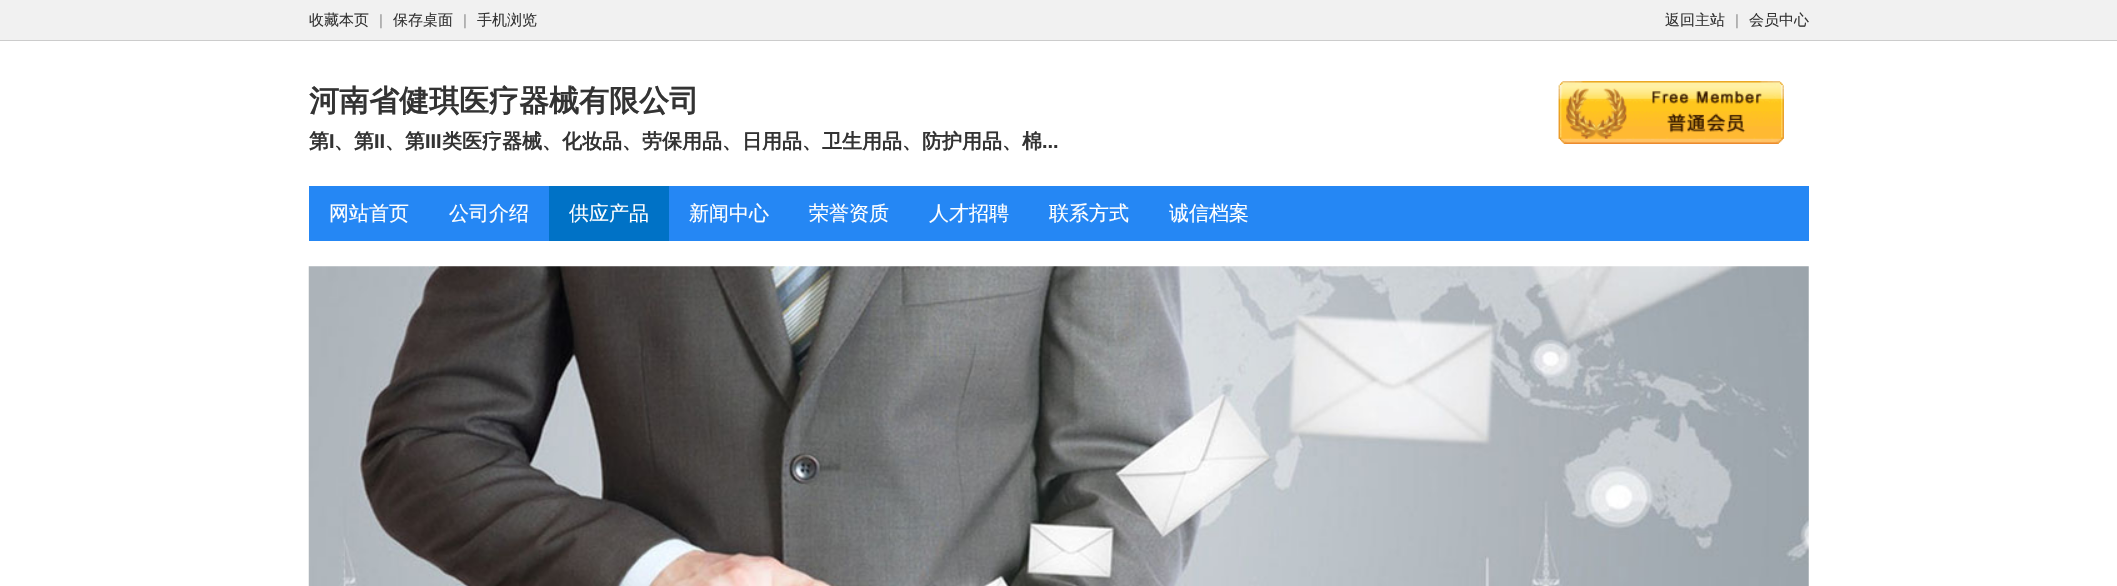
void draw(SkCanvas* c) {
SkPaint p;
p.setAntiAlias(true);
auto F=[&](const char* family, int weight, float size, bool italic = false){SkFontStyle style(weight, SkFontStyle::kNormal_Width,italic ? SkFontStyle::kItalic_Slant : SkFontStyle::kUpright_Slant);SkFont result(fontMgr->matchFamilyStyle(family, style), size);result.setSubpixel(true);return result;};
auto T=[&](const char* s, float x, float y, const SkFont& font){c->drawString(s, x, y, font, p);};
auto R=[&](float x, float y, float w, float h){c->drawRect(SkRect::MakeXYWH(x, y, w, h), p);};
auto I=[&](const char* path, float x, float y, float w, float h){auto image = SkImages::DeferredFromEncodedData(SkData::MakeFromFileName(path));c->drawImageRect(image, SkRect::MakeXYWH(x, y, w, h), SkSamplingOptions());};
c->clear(0xffffffff);
p.setColor(0xfff1f1f1);
R(0,0,2117,40);
p.setColor(0xffcccccc);
R(0,40,2117,1);
auto f1 = F("WenQuanYi Zen Hei",500,15);
p.setColor(0xff333333);
T("收藏本页",309,25,f1);
auto f2 = F("Liberation Sans",400,15);
p.setColor(0xff999999);
T("|",379,25,f2);
p.setColor(0xff333333);
T("保存桌面",393,25,f1);
p.setColor(0xff999999);
T("|",463,25,f2);
p.setColor(0xff333333);
T("手机浏览",477,25,f1);
T("返回主站",1665,25,f1);
p.setColor(0xff999999);
T("|",1735,25,f2);
p.setColor(0xff333333);
T("会员中心",1749,25,f1);
auto f3 = F("WenQuanYi Zen Hei",700,30);
T("河南省健琪医疗器械有限公司",309,111,f3);
auto f4 = F("WenQuanYi Zen Hei",700,20);
T("第",309,148,f4);
auto f5 = F("Liberation Sans",700,20);
T("I",329,148,f5);
T("、第",334,148,f4);
T("II",374,148,f5);
T("、第",385,148,f4);
T("III",425,148,f5);
T("类医疗器械、化妆品、劳保用品、日用品、卫生用品、防护用品、棉",442,148,f4);
T("...",1042,148,f5);
I("1.png",1558,81,226,63);
I("2.png",1558,81,226,63);
p.setColor(0xff2587f4);
R(309,186,1500,55);
auto f6 = F("WenQuanYi Zen Hei",500,20);
p.setColor(0xffffffff);
T("网站首页",329,220,f6);
T("公司介绍",449,220,f6);
p.setColor(0xff0072c6);
R(549,186,120,55);
p.setColor(0xffffffff);
T("供应产品",569,220,f6);
T("新闻中心",689,220,f6);
T("荣誉资质",809,220,f6);
T("人才招聘",929,220,f6);
T("联系方式",1049,220,f6);
T("诚信档案",1169,220,f6);
I("3.png",308,266,1501,320);
}
